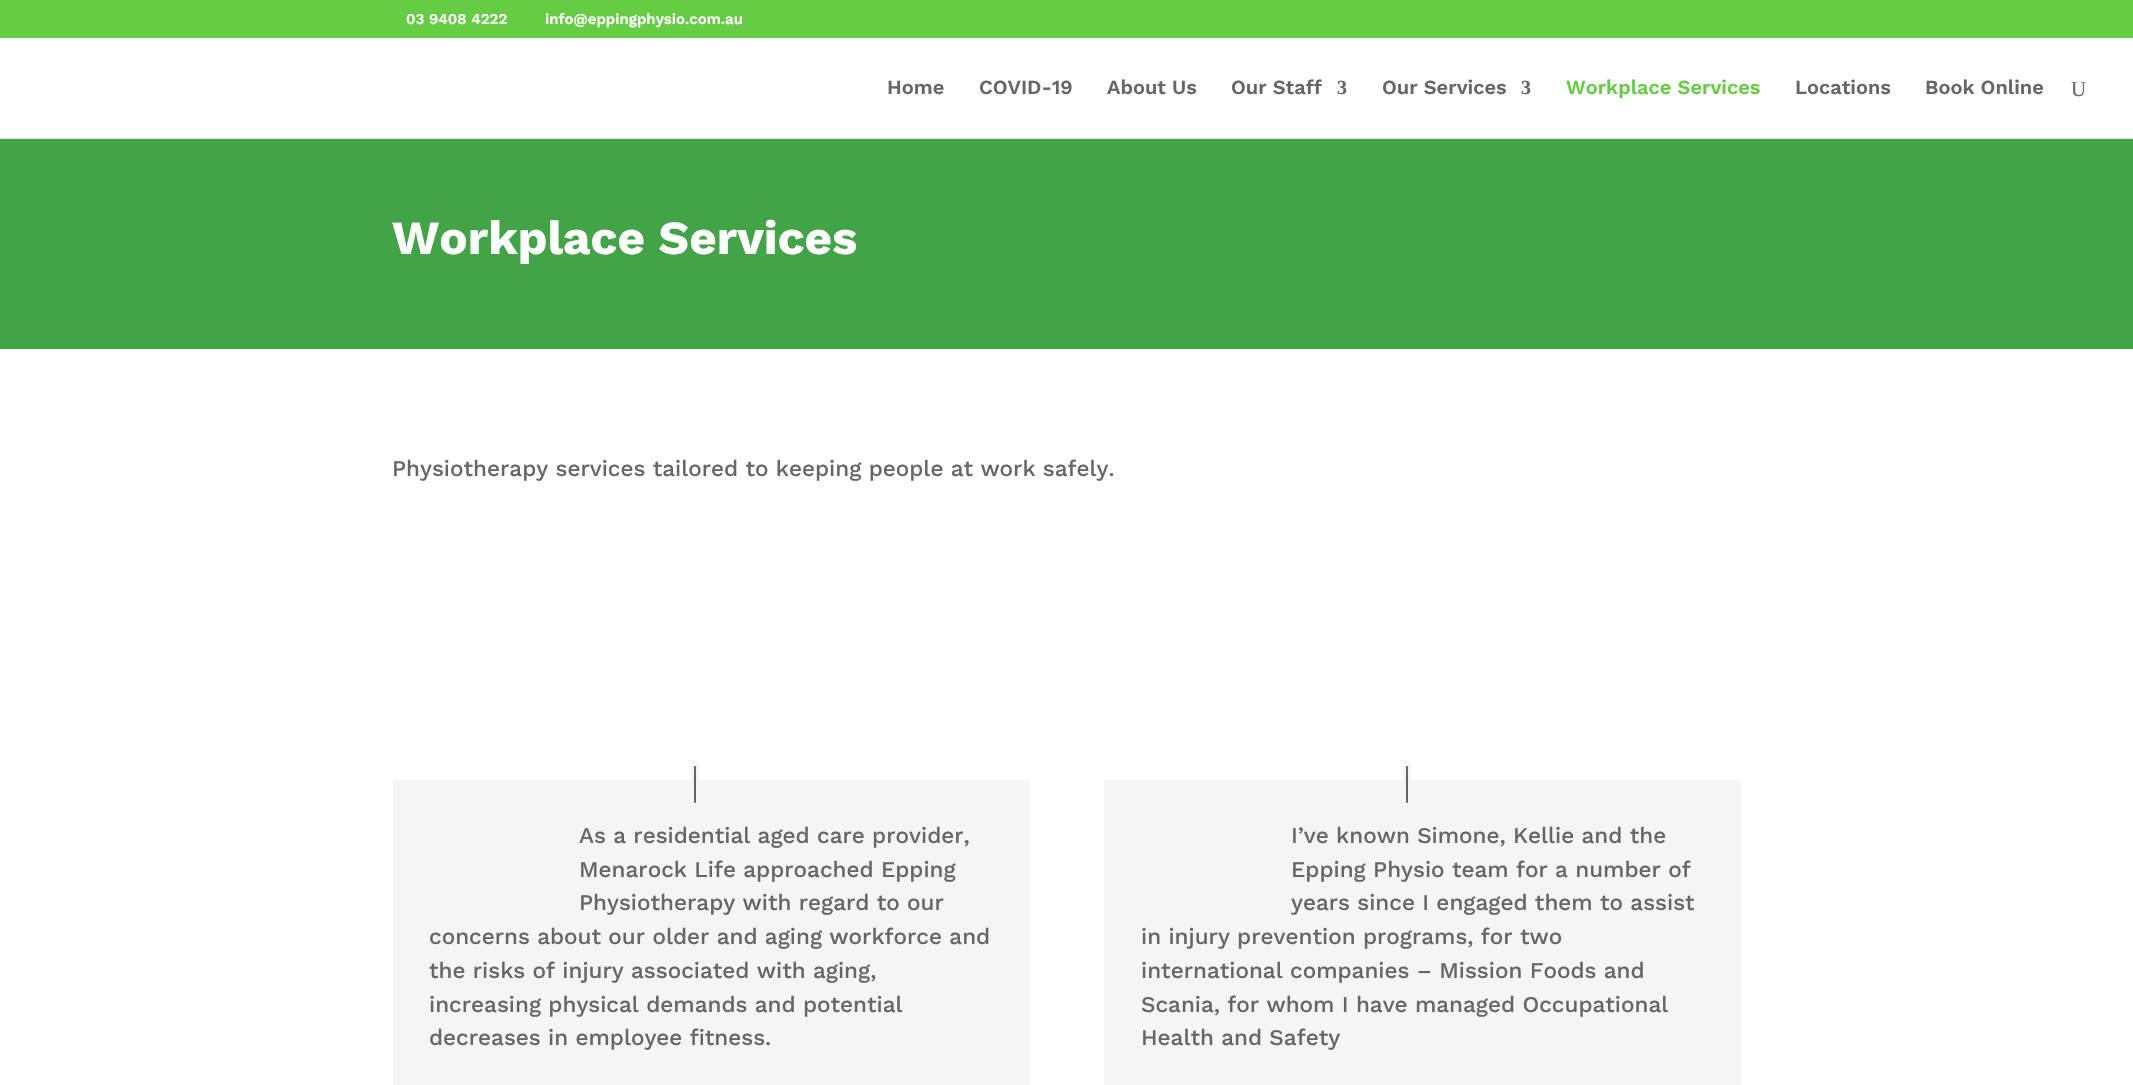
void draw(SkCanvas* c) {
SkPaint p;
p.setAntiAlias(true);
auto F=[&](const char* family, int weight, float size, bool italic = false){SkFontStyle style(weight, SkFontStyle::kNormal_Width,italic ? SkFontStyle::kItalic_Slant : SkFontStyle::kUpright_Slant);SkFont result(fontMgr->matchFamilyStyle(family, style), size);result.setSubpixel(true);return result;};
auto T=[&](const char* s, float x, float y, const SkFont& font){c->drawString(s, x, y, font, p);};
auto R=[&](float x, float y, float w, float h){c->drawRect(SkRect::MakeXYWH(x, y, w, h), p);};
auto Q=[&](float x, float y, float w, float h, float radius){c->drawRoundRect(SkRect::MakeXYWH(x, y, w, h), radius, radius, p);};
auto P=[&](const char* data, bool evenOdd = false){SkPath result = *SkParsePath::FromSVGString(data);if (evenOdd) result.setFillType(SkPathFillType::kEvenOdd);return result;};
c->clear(0xffffffff);
p.setColor(0xff66cc44);
R(0,0,2133,38);
auto f1 = F("Work Sans",600,15);
p.setColor(0xffffffff);
T("03 9408 4222",406,24,f1);
T("info@eppingphysio.com.au",545,24,f1);
p.setColor(0xffe6e6e6);
c->drawPath(P("M0 138v1h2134v-100v99z"),p);
auto f2 = F("Work Sans",600,20);
p.setColor(0xff666666);
T("Home",887,94,f2);
T("COVID-19",979,94,f2);
T("About Us",1107,94,f2);
T("Our Staff",1231,94,f2);
auto f3 = F("Liberation Serif",700,20);
T("3",1337,94,f3);
T("Our Services",1382,94,f2);
T("3",1521,94,f3);
p.setColor(0xff66cc44);
T("Workplace Services",1566,94,f2);
p.setColor(0xff666666);
T("Locations",1795,94,f2);
T("Book Online",1925,94,f2);
auto f4 = F("Liberation Serif",400,21);
T("U",2071,96,f4);
p.setColor(0xff42a347);
R(0,139,2133,210);
auto f5 = F("Work Sans",700,47.5);
p.setColor(0xffffffff);
T("Workplace Services",392,254,f5);
auto f6 = F("Work Sans",500,22.5);
p.setColor(0xff666666);
T("Physiotherapy services tailored to keeping people at work safely.",392,476,f6);
p.setColor(0xfff5f5f5);
R(393,780,637,305);
Q(691,760,8,40,4);
auto f7 = F("Liberation Serif",400,40);
p.setColor(0xff666666);
T("|",691,794,f7);
T("As a residential aged care provider,",579,843,f6);
T("Menarock Life approached Epping",579,877,f6);
T("Physiotherapy with regard to our",579,910,f6);
T("concerns about our older and aging workforce and",429,944,f6);
T("the risks of injury associated with aging,",429,978,f6);
T("increasing physical demands and potential",429,1012,f6);
T("decreases in employee fitness.",429,1045,f6);
p.setColor(0xfff5f5f5);
R(1104,780,637,305);
Q(1403,760,8,40,4);
p.setColor(0xff666666);
T("|",1403,794,f7);
T("I’ve known Simone, Kellie and the",1291,843,f6);
T("Epping Physio team for a number of",1291,877,f6);
T("years since I engaged them to assist",1291,910,f6);
T("in injury prevention programs, for two",1141,944,f6);
T("international companies – Mission Foods and",1141,978,f6);
T("Scania, for whom I have managed Occupational",1141,1012,f6);
T("Health and Safety",1141,1045,f6);
}
